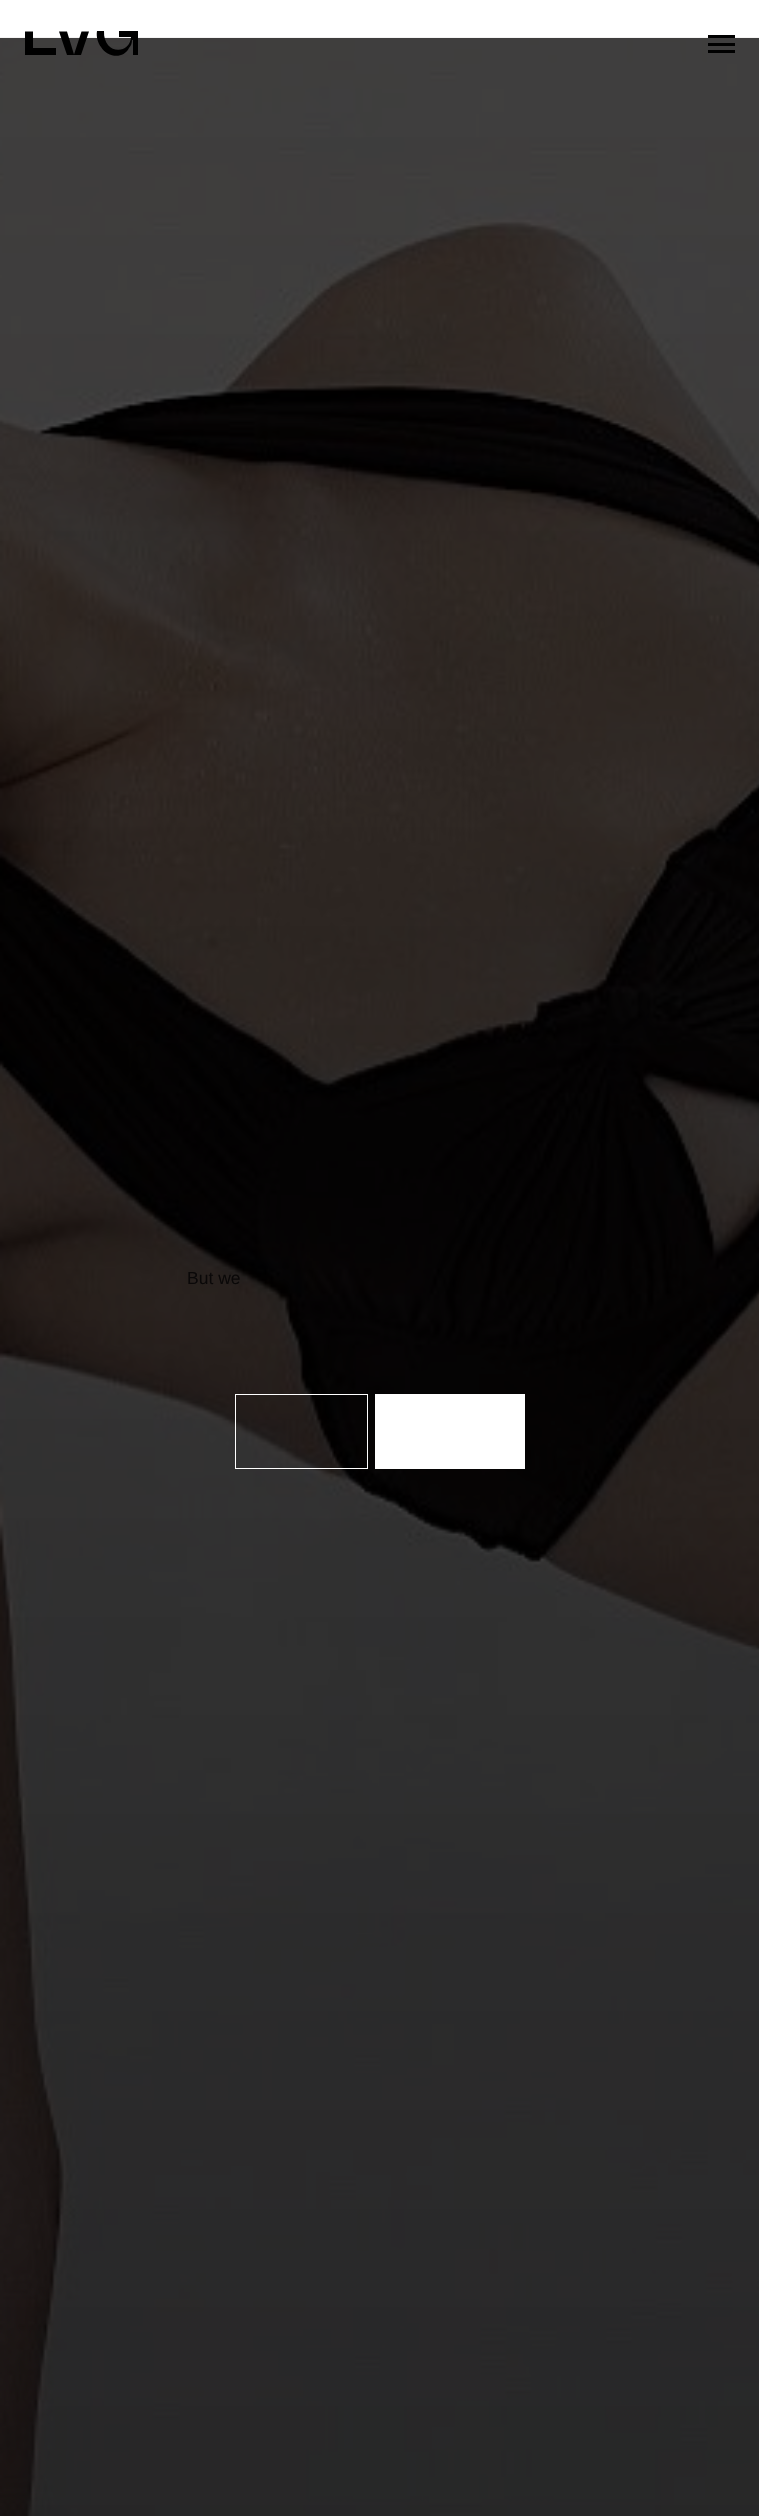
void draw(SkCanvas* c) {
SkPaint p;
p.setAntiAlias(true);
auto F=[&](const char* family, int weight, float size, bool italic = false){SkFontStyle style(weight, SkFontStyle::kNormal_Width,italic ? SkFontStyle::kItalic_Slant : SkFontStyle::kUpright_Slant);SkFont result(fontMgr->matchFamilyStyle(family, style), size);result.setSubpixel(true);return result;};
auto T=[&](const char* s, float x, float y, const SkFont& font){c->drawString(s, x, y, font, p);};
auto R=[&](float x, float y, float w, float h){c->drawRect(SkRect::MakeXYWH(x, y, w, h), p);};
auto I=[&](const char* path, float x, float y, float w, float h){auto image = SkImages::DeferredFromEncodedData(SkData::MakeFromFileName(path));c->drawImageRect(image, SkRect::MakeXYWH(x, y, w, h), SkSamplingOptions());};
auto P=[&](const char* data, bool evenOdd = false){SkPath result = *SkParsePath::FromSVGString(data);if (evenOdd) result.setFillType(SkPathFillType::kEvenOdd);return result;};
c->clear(0xffffffff);
I("1.png",0,37,759,2479);
p.setColor(0xff000000);
c->drawPath(P("M33 48v-16.5h-8v23.5h31v-7z"),p);
c->drawPath(P("M74 54.5l-7-23h-8l8 23.5h7h7l8-23.5h-7.5z"),p);
c->drawPath(P("M119 31v6h12c-1 18-28 18-27-6h-7c-1 6 1 12 4 16c6 10 22 13 28 1c2-2 3-5 3-8h1v15h5v-24z"),p);
R(708,35,27,3);
R(708,43,27,3);
R(708,50,27,3);
auto f1 = F("Liberation Sans",400,17.5);
p.setColor(0xff0a0808);
T("But we",187,1284,f1);
p.setStroke(true);
p.setStrokeWidth(1);
p.setColor(0xffffffff);
c->drawRect(SkRect::MakeXYWH(235.5,1394.5,132,74),p);
p.setStroke(false);
R(375,1394,150,75);
}
